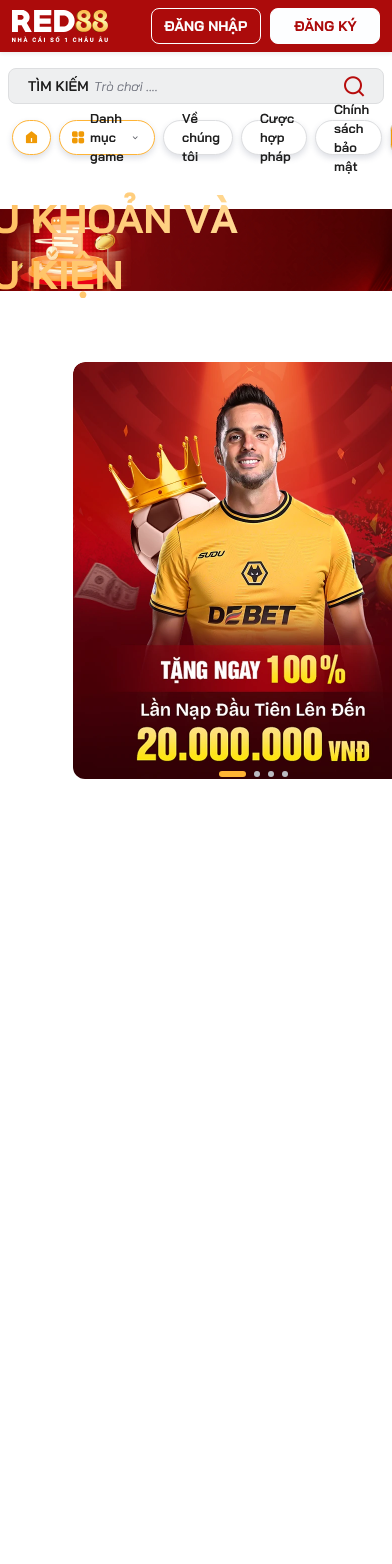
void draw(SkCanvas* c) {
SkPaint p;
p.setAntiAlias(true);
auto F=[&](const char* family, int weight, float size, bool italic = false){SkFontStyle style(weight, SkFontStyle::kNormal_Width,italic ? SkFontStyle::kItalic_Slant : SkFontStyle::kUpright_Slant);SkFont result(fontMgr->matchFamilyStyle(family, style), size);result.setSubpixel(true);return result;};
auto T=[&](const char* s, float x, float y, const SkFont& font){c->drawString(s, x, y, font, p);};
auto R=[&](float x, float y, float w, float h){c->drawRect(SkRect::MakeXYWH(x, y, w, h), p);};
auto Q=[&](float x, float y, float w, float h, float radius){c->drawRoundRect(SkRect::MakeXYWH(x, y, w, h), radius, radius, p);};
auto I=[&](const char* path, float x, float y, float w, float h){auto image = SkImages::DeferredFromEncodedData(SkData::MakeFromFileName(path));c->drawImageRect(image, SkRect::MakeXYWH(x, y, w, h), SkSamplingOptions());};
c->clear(0xffffffff);
p.setColor(0x12000000);
p.setMaskFilter(SkMaskFilter::MakeBlur(kNormal_SkBlurStyle, 2));
c->drawRect(SkRect::MakeXYWH(0,2,392,52),p);
p.setMaskFilter(nullptr);
p.setColor(0xffac0b0b);
R(0,0,392,52);
I("1.png",12,10,96,32);
p.setStroke(true);
p.setStrokeWidth(1);
p.setColor(0xfffdfeff);
c->drawRoundRect(SkRect::MakeXYWH(151.5,8.5,109,35),7.5,7.5,p);
auto f1 = F("Bai Jamjuree",700,14);
p.setStroke(false);
T("ĐĂNG NHẬP",164,31,f1);
c->drawRoundRect(SkRect::MakeXYWH(270.5,8.5,109,35),7.5,7.5,p);
p.setStroke(true);
c->drawRoundRect(SkRect::MakeXYWH(270.5,8.5,109,35),7.5,7.5,p);
p.setStroke(false);
p.setColor(0xffac0b0b);
T("ĐĂNG KÝ",294,31,f1);
p.setColor(0xffeeeff0);
c->drawRoundRect(SkRect::MakeXYWH(8.5,68.5,375,35),7.5,7.5,p);
p.setStroke(true);
p.setColor(0xffdddee0);
c->drawRoundRect(SkRect::MakeXYWH(8.5,68.5,375,35),7.5,7.5,p);
auto f2 = F("Bai Jamjuree",600,14);
p.setStroke(false);
p.setColor(0xff1e1e1e);
T("TÌM KIẾM",28,91,f2);
auto f3 = F("Bai Jamjuree",400,13,true);
p.setColor(0xff747782);
T("Trò chơi ....",94,91,f3);
I("2.png",344,76,21,21);
p.setColor(0x334f5b7a);
p.setMaskFilter(SkMaskFilter::MakeBlur(kNormal_SkBlurStyle, 3));
c->drawRoundRect(SkRect::MakeXYWH(12,123,39,35),17.5,17.5,p);
p.setMaskFilter(nullptr);
p.setColor(0xffffffff);
c->drawRoundRect(SkRect::MakeXYWH(12.5,120.5,38,34),17,17,p);
p.setStroke(true);
p.setColor(0xffffb435);
c->drawRoundRect(SkRect::MakeXYWH(12.5,120.5,38,34),17,17,p);
I("3.png",25,131,13,13);
p.setStroke(false);
p.setColor(0x334f5b7a);
p.setMaskFilter(SkMaskFilter::MakeBlur(kNormal_SkBlurStyle, 3));
c->drawRoundRect(SkRect::MakeXYWH(163,123,70,35),17.5,17.5,p);
p.setMaskFilter(nullptr);
p.setColor(0xffffffff);
c->drawRoundRect(SkRect::MakeXYWH(163.5,120.5,69,34),17,17,p);
p.setStroke(true);
p.setColor(0xffdddee0);
c->drawRoundRect(SkRect::MakeXYWH(163.5,120.5,69,34),17,17,p);
p.setStroke(false);
p.setColor(0x334f5b7a);
p.setMaskFilter(SkMaskFilter::MakeBlur(kNormal_SkBlurStyle, 3));
c->drawRoundRect(SkRect::MakeXYWH(59,123,96,35),17.5,17.5,p);
p.setMaskFilter(nullptr);
p.setColor(0xffffffff);
c->drawRoundRect(SkRect::MakeXYWH(59.5,120.5,95,34),17,17,p);
p.setStroke(true);
p.setColor(0xffffb435);
c->drawRoundRect(SkRect::MakeXYWH(59.5,120.5,95,34),17,17,p);
auto f4 = F("Bai Jamjuree",600,13);
p.setStroke(false);
p.setColor(0xff1e1e1e);
T("Danh",90,123,f4);
I("4.png",72,131,13,13);
T("mục",90,142,f4);
I("5.png",132,136,6,4);
T("game",90,161,f4);
T("Về",182,123,f4);
T("chúng",182,142,f4);
T("tôi",182,161,f4);
p.setColor(0x334f5b7a);
p.setMaskFilter(SkMaskFilter::MakeBlur(kNormal_SkBlurStyle, 3));
c->drawRoundRect(SkRect::MakeXYWH(241,123,66,35),17.5,17.5,p);
p.setMaskFilter(nullptr);
p.setColor(0xffffffff);
c->drawRoundRect(SkRect::MakeXYWH(241.5,120.5,65,34),17,17,p);
p.setStroke(true);
p.setColor(0xffdddee0);
c->drawRoundRect(SkRect::MakeXYWH(241.5,120.5,65,34),17,17,p);
p.setStroke(false);
p.setColor(0xff1e1e1e);
T("Cược",260,123,f4);
T("hợp",260,142,f4);
T("pháp",260,161,f4);
p.setColor(0x334f5b7a);
p.setMaskFilter(SkMaskFilter::MakeBlur(kNormal_SkBlurStyle, 3));
c->drawRoundRect(SkRect::MakeXYWH(315,123,67,35),17.5,17.5,p);
p.setMaskFilter(nullptr);
p.setColor(0xffffffff);
c->drawRoundRect(SkRect::MakeXYWH(315.5,120.5,66,34),17,17,p);
p.setStroke(true);
p.setColor(0xffdddee0);
c->drawRoundRect(SkRect::MakeXYWH(315.5,120.5,66,34),17,17,p);
p.setStroke(false);
p.setColor(0xff1e1e1e);
T("Chính",334,114,f4);
T("sách",334,133,f4);
T("bảo",334,152,f4);
T("mật",334,171,f4);
p.setColor(0x334f5b7a);
p.setMaskFilter(SkMaskFilter::MakeBlur(kNormal_SkBlurStyle, 3));
c->drawRoundRect(SkRect::MakeXYWH(390,123,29,35),17.5,17.5,p);
p.setMaskFilter(nullptr);
p.setColor(0xfff09a06);
c->drawRoundRect(SkRect::MakeXYWH(390.5,120.5,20,34),17,17,p);
p.setStroke(true);
p.setColor(0xffdddee0);
c->drawRoundRect(SkRect::MakeXYWH(390.5,120.5,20,34),17,17,p);
I("6.png",0,209,392,82);
auto f5 = F("Bai Jamjuree",700,40);
p.setStroke(false);
{
const SkColor colors[] = {0xffffeab5,0xffffb750};
const float stops[] = {0,1};
const SkPoint ends[] = {{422,178}, {-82,294}};
p.setShader(SkGradientShader::MakeLinear(ends, colors, stops, 2, SkTileMode::kClamp));
p.setAlpha(255);
}
T("U KHOẢN VÀ",-9,233,f5);
T("U KIỆN",-9,289,f5);
I("7.png",73,362,319,417);
p.setShader(nullptr);
p.setColor(0xffffb435);
Q(219,771,27,6,3);
p.setColor(0xffbabbc1);
c->drawCircle(257,774,3,p);
c->drawCircle(271,774,3,p);
c->drawCircle(285,774,3,p);
}
